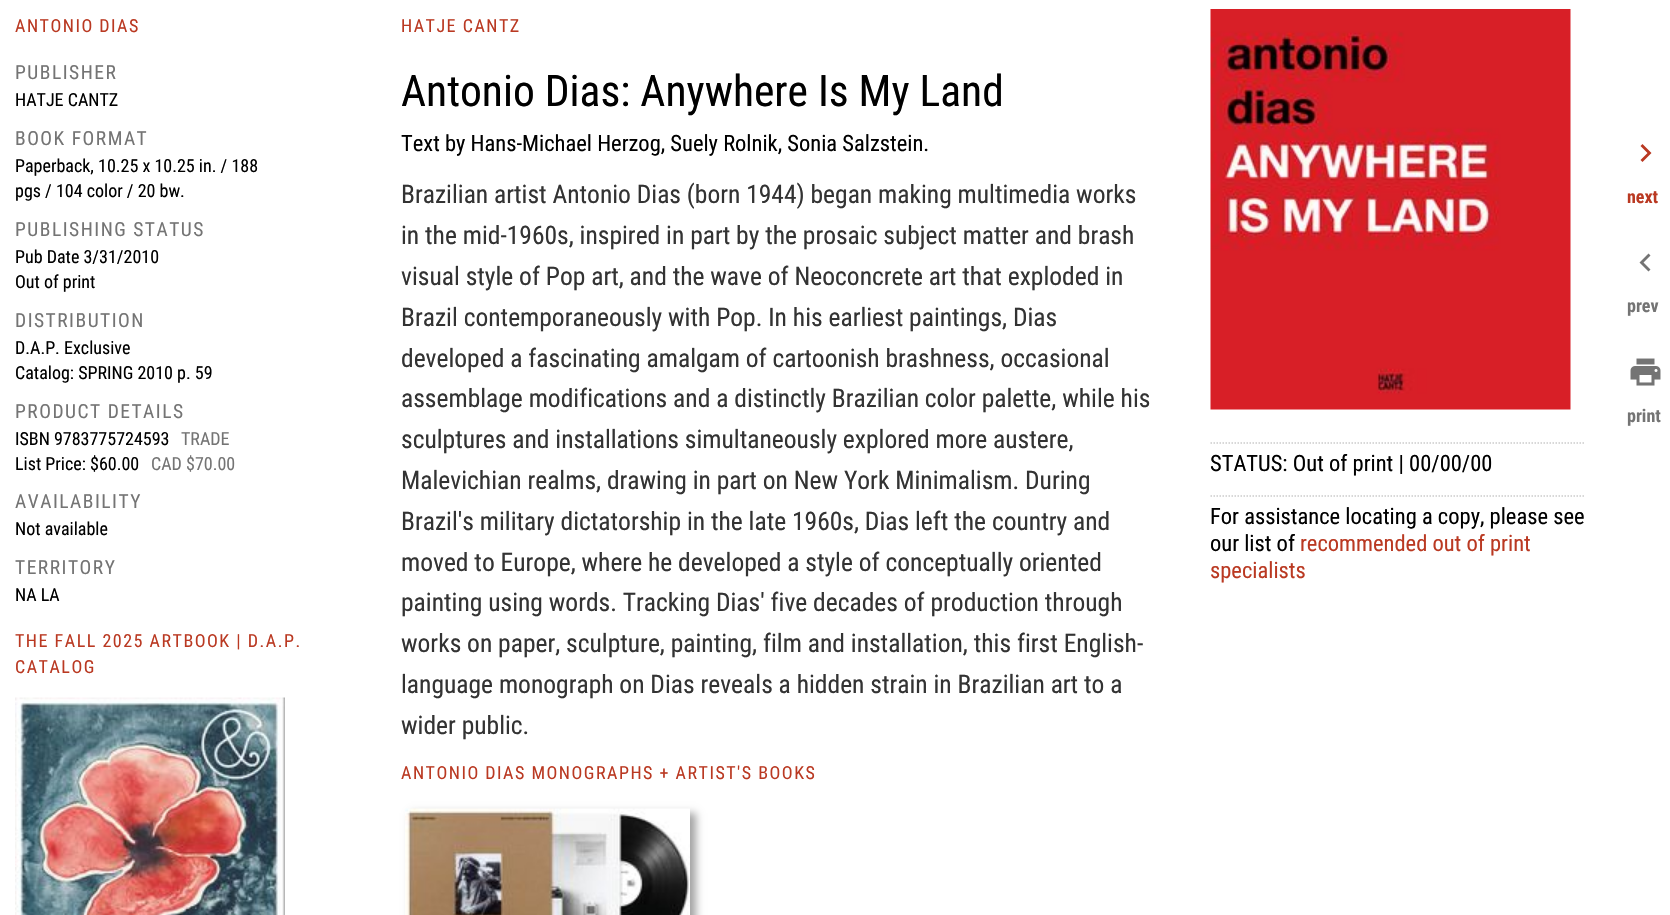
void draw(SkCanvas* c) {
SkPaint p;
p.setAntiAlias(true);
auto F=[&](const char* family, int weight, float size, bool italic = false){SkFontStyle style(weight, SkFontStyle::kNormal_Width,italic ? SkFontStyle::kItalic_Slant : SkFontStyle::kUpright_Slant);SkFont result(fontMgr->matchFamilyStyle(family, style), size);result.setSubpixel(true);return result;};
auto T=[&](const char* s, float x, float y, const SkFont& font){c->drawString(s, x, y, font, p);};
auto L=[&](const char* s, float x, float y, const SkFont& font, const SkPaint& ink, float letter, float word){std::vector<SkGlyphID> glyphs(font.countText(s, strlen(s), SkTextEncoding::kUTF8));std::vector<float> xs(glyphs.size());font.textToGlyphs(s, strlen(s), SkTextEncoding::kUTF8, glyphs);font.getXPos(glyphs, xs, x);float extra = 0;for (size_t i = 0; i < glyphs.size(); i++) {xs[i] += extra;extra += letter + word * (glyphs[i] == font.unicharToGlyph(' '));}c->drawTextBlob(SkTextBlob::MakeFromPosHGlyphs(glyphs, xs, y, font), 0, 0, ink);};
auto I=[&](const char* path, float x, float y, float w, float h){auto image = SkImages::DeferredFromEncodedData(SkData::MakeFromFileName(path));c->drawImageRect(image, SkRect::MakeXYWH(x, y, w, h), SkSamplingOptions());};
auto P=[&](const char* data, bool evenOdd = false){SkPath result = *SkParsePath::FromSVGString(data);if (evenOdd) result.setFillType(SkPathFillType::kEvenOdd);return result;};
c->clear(0xffffffff);
auto f1 = F("Roboto Condensed",400,18);
p.setColor(0xffba3922);
L("ANTONIO DIAS",15,32,f1,p,1.5,0);
auto f2 = F("Roboto Condensed",400,19.5);
p.setColor(0xff747474);
L("PUBLISHER",15,79,f2,p,1.5,0);
p.setColor(0xff000000);
T("HATJE CANTZ",15,106,f1);
p.setColor(0xff747474);
L("BOOK FORMAT",15,145,f2,p,1.5,0);
p.setColor(0xff000000);
T("Paperback, 10.25 x 10.25 in. / 188",15,172,f1);
T("pgs / 104 color / 20 bw.",15,197,f1);
p.setColor(0xff747474);
L("PUBLISHING STATUS",15,236,f2,p,1.5,0);
p.setColor(0xff000000);
T("Pub Date 3/31/2010",15,263,f1);
T("Out of print",15,288,f1);
p.setColor(0xff747474);
L("DISTRIBUTION",15,327,f2,p,1.5,0);
p.setColor(0xff000000);
T("D.A.P. Exclusive",15,354,f1);
T("Catalog: SPRING 2010 p. 59",15,379,f1);
p.setColor(0xff747474);
L("PRODUCT DETAILS",15,418,f2,p,1.5,0);
p.setColor(0xff000000);
T("ISBN 9783775724593",15,445,f1);
p.setColor(0xff747474);
T("TRADE",181,445,f1);
p.setColor(0xff000000);
T("List Price: $60.00",15,470,f1);
p.setColor(0xff747474);
T("CAD $70.00",151,470,f1);
L("AVAILABILITY",15,508,f2,p,1.5,0);
p.setColor(0xff000000);
T("Not available",15,535,f1);
p.setColor(0xff747474);
L("TERRITORY",15,574,f2,p,1.5,0);
p.setColor(0xff000000);
T("NA LA",15,601,f1);
p.setColor(0xffba3922);
L("THE FALL 2025 ARTBOOK | D.A.P.",15,647,f1,p,1.5,0);
L("CATALOG",15,673,f1,p,1.5,0);
I("1.png",15,697,270,218);
L("HATJE CANTZ",401,32,f1,p,1.5,0);
auto f3 = F("Roboto Condensed",400,43.5);
p.setColor(0xff000000);
T("Antonio Dias: Anywhere Is My Land",401,106,f3);
auto f4 = F("Roboto Condensed",400,22.5);
T("Text by Hans-Michael Herzog, Suely Rolnik, Sonia Salzstein.",401,151,f4);
auto f5 = F("Roboto Condensed",400,25.5);
p.setColor(0xff333333);
T("Brazilian artist Antonio Dias (born 1944) began making multimedia works",401,203,f5);
T("in the mid-1960s, inspired in part by the prosaic subject matter and brash",401,244,f5);
T("visual style of Pop art, and the wave of Neoconcrete art that exploded in",401,285,f5);
T("Brazil contemporaneously with Pop. In his earliest paintings, Dias",401,326,f5);
T("developed a fascinating amalgam of cartoonish brashness, occasional",401,367,f5);
T("assemblage modifications and a distinctly Brazilian color palette, while his",401,407,f5);
T("sculptures and installations simultaneously explored more austere,",401,448,f5);
T("Malevichian realms, drawing in part on New York Minimalism. During",401,489,f5);
T("Brazil's military dictatorship in the late 1960s, Dias left the country and",401,530,f5);
T("moved to Europe, where he developed a style of conceptually oriented",401,571,f5);
T("painting using words. Tracking Dias' five decades of production through",401,611,f5);
T("works on paper, sculpture, painting, film and installation, this first English-",401,652,f5);
T("language monograph on Dias reveals a hidden strain in Brazilian art to a",401,693,f5);
T("wider public.",401,734,f5);
I("2.png",1210,9,361,401);
p.setStroke(true);
p.setStrokeWidth(1.5);
p.setColor(0xffcccccc);
p.setPathEffect(SkDashPathEffect::Make({{1.5f,1.5f}}, 0));
c->drawPath(P("M1210.5 443h375"),p);
p.setPathEffect(nullptr);
p.setStroke(false);
p.setColor(0xff000000);
T("STATUS: Out of print | 00/00/00",1210,471,f4);
p.setStroke(true);
p.setColor(0xffcccccc);
p.setPathEffect(SkDashPathEffect::Make({{1.5f,1.5f}}, 0));
c->drawPath(P("M1210.5 496h375"),p);
p.setPathEffect(nullptr);
p.setStroke(false);
p.setColor(0xff000000);
T("For assistance locating a copy, please see",1210,524,f4);
T("our list of",1210,551,f4);
p.setColor(0xffba3922);
T("recommended out of print",1300,551,f4);
T("specialists",1210,578,f4);
L("ANTONIO DIAS MONOGRAPHS + ARTIST'S BOOKS",401,779,f1,p,1.5,0);
p.setColor(0xffa3a3a3);
p.setMaskFilter(SkMaskFilter::MakeBlur(kNormal_SkBlurStyle, 4));
c->drawRect(SkRect::MakeXYWH(411,813,285,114),p);
p.setMaskFilter(nullptr);
I("3.png",405,808,285,107);
p.setColor(0xffba3922);
c->drawPath(P("M1642.5 144l9 9l-9 9l-2-2l7-7l-7-7z"),p);
auto f6 = F("Roboto Condensed",700,18);
T("next",1627,203,f6);
p.setColor(0xff747474);
c->drawPath(P("M1650.5 255.5l-7 7l7 7l-2 2l-9-9l9-9z"),p);
T("prev",1627,312,f6);
I("4.png",1630,358,31,28);
T("print",1627,422,f6);
}
